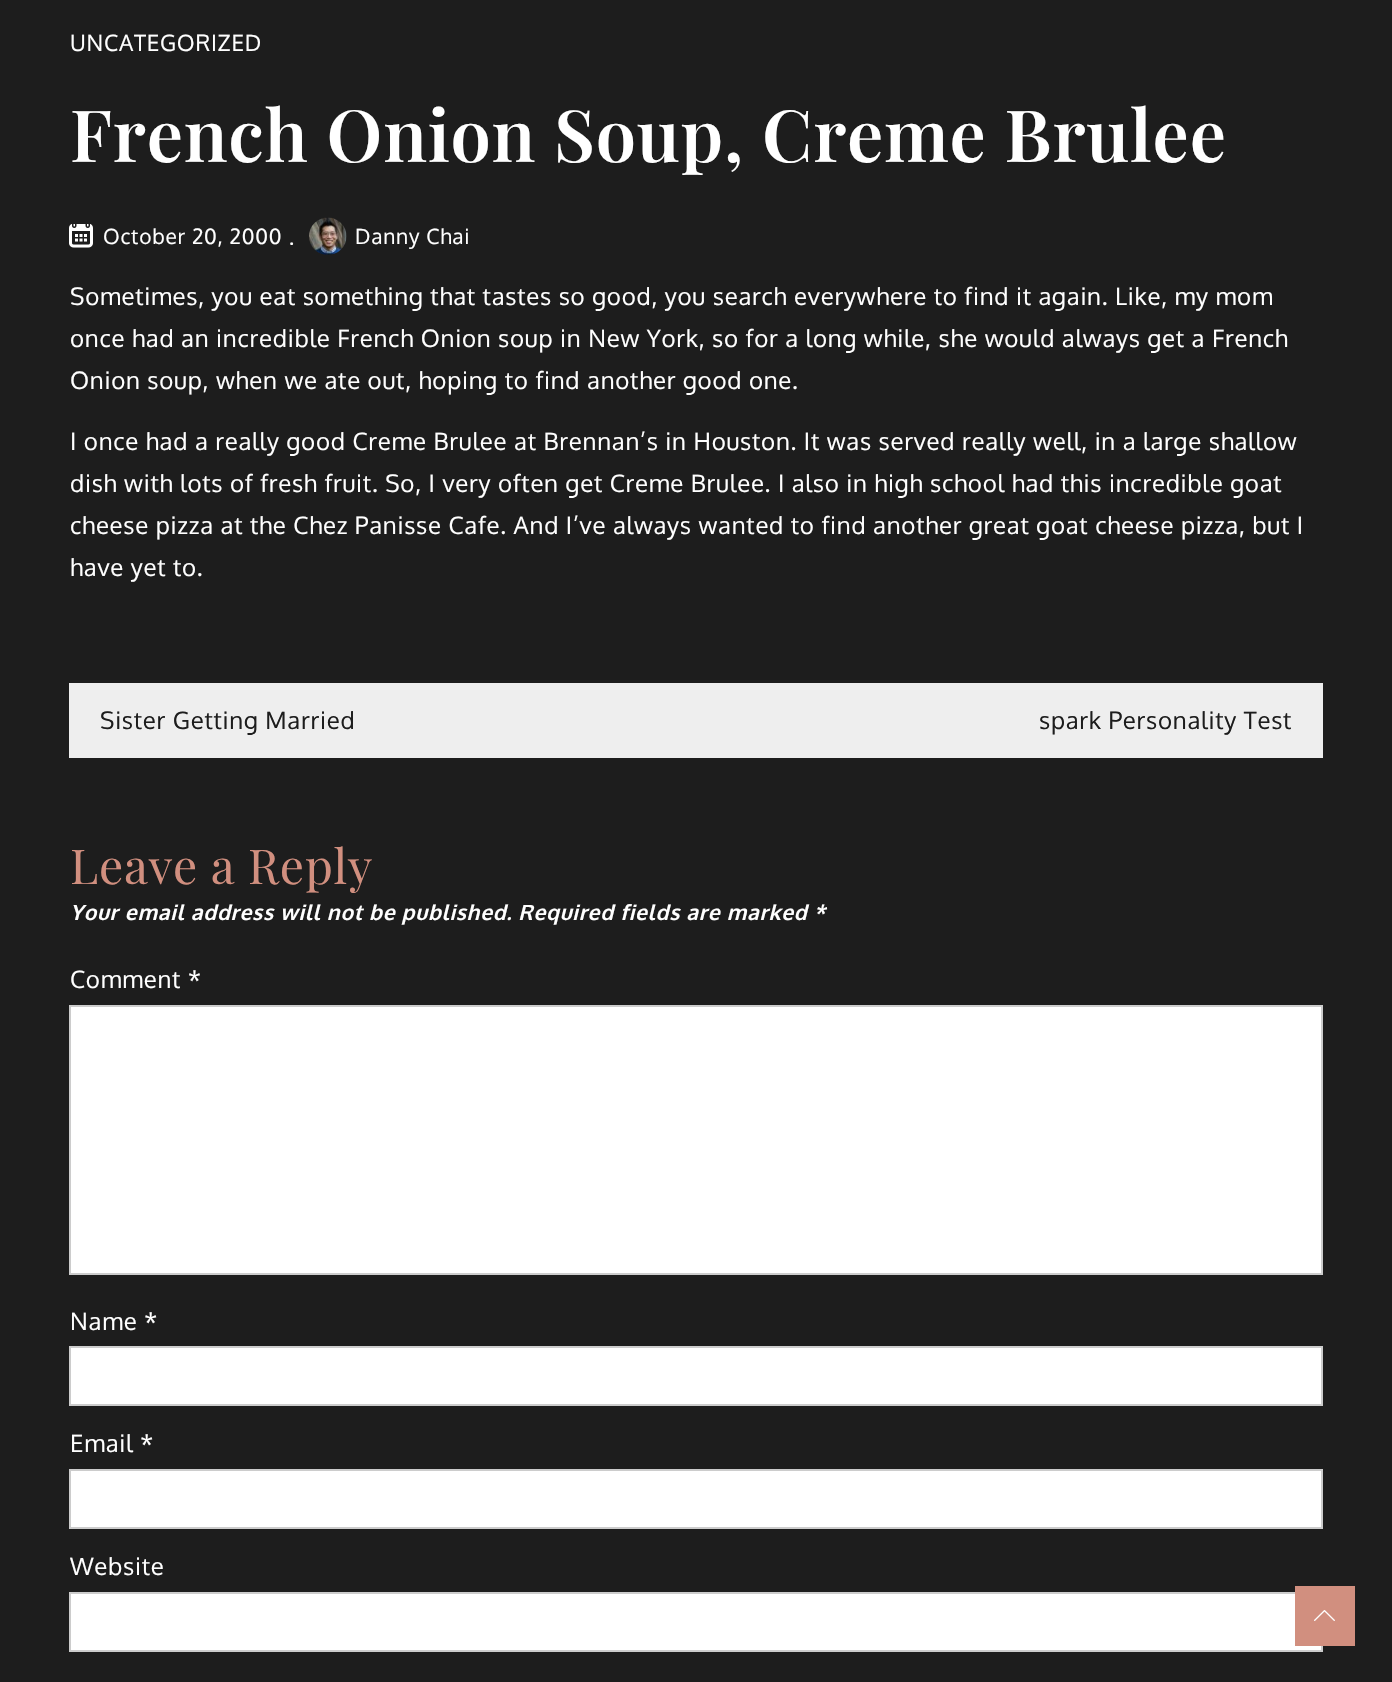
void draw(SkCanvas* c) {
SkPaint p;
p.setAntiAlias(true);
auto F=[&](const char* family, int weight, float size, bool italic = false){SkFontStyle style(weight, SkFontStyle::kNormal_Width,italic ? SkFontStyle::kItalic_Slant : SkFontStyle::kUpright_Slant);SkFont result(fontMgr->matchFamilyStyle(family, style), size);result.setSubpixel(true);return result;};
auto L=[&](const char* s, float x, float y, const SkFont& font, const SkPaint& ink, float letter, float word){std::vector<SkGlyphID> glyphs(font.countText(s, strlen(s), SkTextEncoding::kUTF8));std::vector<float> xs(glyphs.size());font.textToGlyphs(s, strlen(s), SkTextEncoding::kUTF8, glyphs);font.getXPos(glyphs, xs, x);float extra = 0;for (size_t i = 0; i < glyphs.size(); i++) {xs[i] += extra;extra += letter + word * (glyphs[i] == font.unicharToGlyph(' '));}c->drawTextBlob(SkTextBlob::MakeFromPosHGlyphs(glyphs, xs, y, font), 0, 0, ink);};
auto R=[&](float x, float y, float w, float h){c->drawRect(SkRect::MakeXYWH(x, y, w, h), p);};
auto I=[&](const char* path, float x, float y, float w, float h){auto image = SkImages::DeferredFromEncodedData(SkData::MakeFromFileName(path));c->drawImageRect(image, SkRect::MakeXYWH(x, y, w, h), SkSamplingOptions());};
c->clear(0xff1d1d1d);
auto f1 = F("Oxygen",400,22.5);
p.setColor(0xffffffff);
L("UNCATEGORIZED",70,51,f1,p,.75,0);
auto f2 = F("Playfair Display",600,72);
L("French Onion Soup, Creme Brulee",70,162,f2,p,.75,0);
I("1.png",69,224,24,24);
auto f3 = F("Oxygen",400,21);
L("October 20, 2000",103,244,f3,p,.75,0);
L(".",289,245,f3,p,.75,0);
I("2.png",309,217,38,38);
L("Danny Chai",355,244,f3,p,.75,0);
auto f4 = F("Oxygen",400,24);
L("Sometimes, you eat something that tastes so good, you search everywhere to find it again. Like, my mom",70,305,f4,p,.75,0);
L("once had an incredible French Onion soup in New York, so for a long while, she would always get a French",70,347,f4,p,.75,0);
L("Onion soup, when we ate out, hoping to find another good one.",70,389,f4,p,.75,0);
L("I once had a really good Creme Brulee at Brennan’s in Houston. It was served really well, in a large shallow",70,450,f4,p,.75,0);
L("dish with lots of fresh fruit. So, I very often get Creme Brulee. I also in high school had this incredible goat",70,492,f4,p,.75,0);
L("cheese pizza at the Chez Panisse Cafe. And I’ve always wanted to find another great goat cheese pizza, but I",70,534,f4,p,.75,0);
L("have yet to.",70,576,f4,p,.75,0);
p.setColor(0xffeeeeee);
R(69,683,1254,75);
p.setColor(0xff1d1d1d);
L("Sister Getting Married",100,729,f4,p,.75,0);
L("spark Personality Test",1039,729,f4,p,.75,0);
auto f5 = F("Playfair Display",400,48);
p.setColor(0xffd18f7f);
L("Leave a Reply",70,884,f5,p,.75,0);
auto f6 = F("Oxygen",700,21,true);
p.setColor(0xffffffff);
L("Your email address will not be published. Required fields are marked *",70,920,f6,p,.75,0);
L("Comment *",70,988,f4,p,.75,0);
c->drawRect(SkRect::MakeXYWH(70,1006,1252,268),p);
p.setStroke(true);
p.setStrokeWidth(2);
p.setColor(0xffcccccc);
c->drawRect(SkRect::MakeXYWH(70,1006,1252,268),p);
p.setStroke(false);
p.setColor(0xffffffff);
L("Name *",70,1330,f4,p,.75,0);
c->drawRect(SkRect::MakeXYWH(70,1347,1252,58),p);
p.setStroke(true);
p.setColor(0xffcccccc);
c->drawRect(SkRect::MakeXYWH(70,1347,1252,58),p);
p.setStroke(false);
p.setColor(0xffffffff);
L("Email *",70,1452,f4,p,.75,0);
c->drawRect(SkRect::MakeXYWH(70,1470,1252,58),p);
p.setStroke(true);
p.setColor(0xffcccccc);
c->drawRect(SkRect::MakeXYWH(70,1470,1252,58),p);
p.setStroke(false);
p.setColor(0xffffffff);
L("Website",70,1575,f4,p,.75,0);
c->drawRect(SkRect::MakeXYWH(70,1593,1252,58),p);
p.setStroke(true);
p.setColor(0xffcccccc);
c->drawRect(SkRect::MakeXYWH(70,1593,1252,58),p);
p.setStroke(false);
p.setColor(0xffd18f7f);
R(1295,1586,60,60);
I("3.png",1314,1610,21,11);
}
